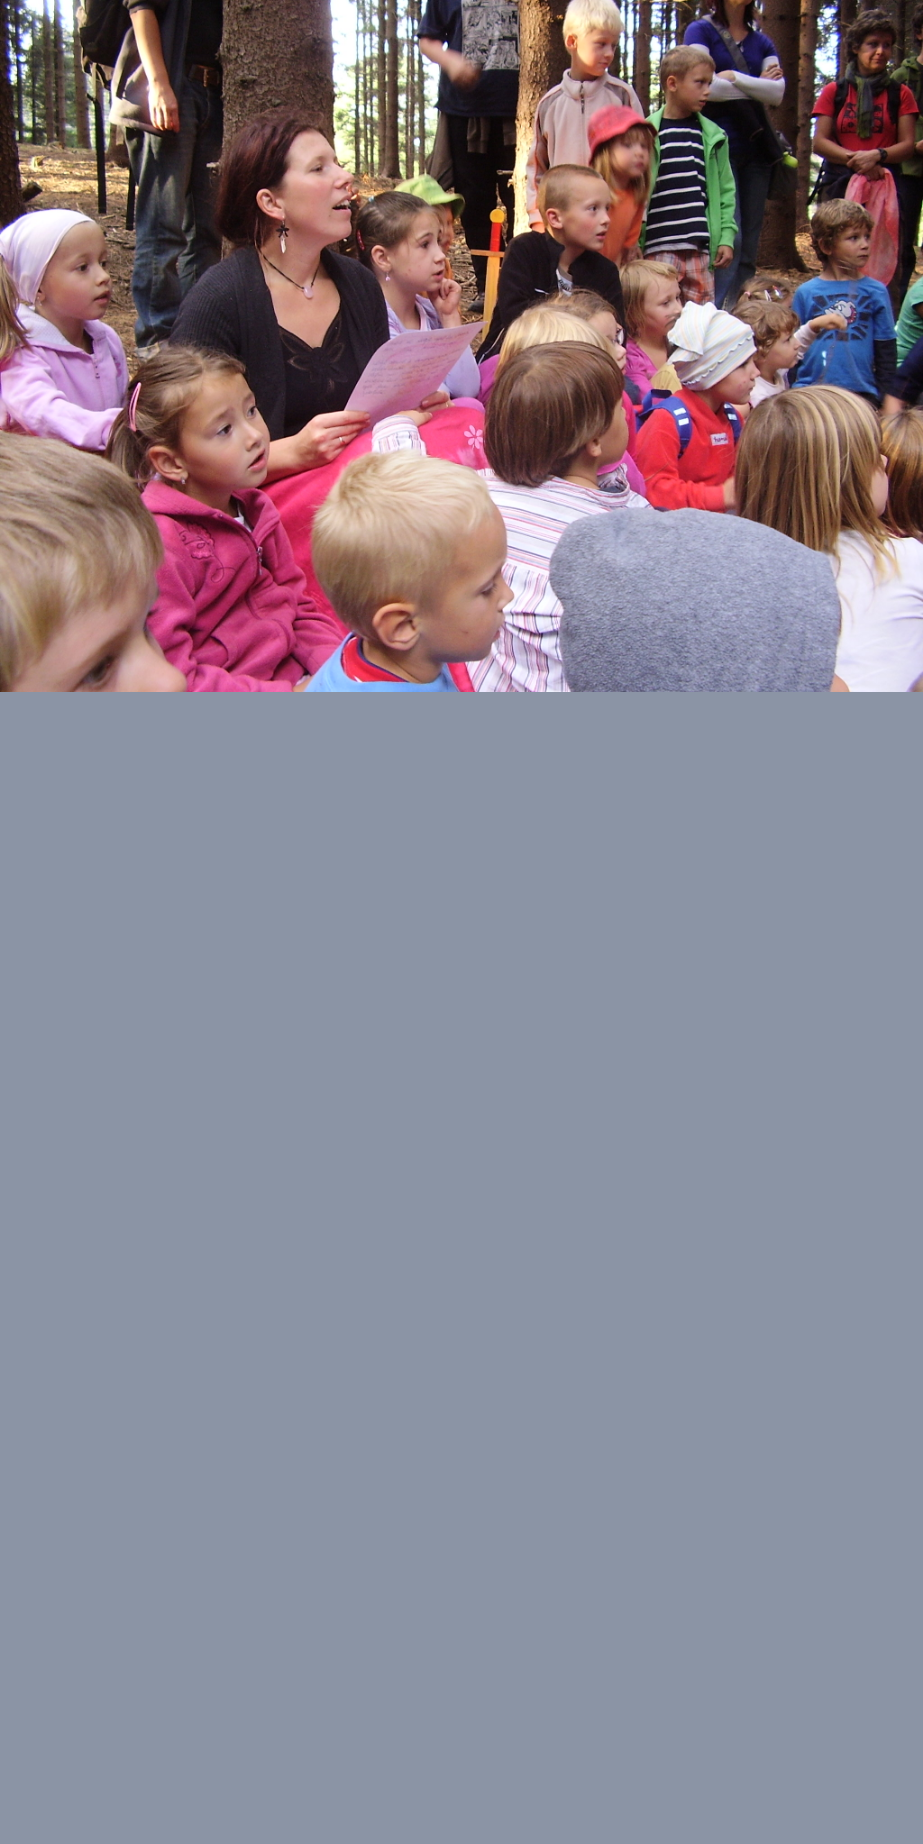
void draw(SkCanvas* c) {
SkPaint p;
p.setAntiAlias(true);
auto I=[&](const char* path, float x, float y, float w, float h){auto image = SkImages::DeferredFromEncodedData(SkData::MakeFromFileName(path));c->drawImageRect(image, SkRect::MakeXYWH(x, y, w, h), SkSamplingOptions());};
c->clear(0xff8b94a5);
I("1.png",0,0,923,692);
}
